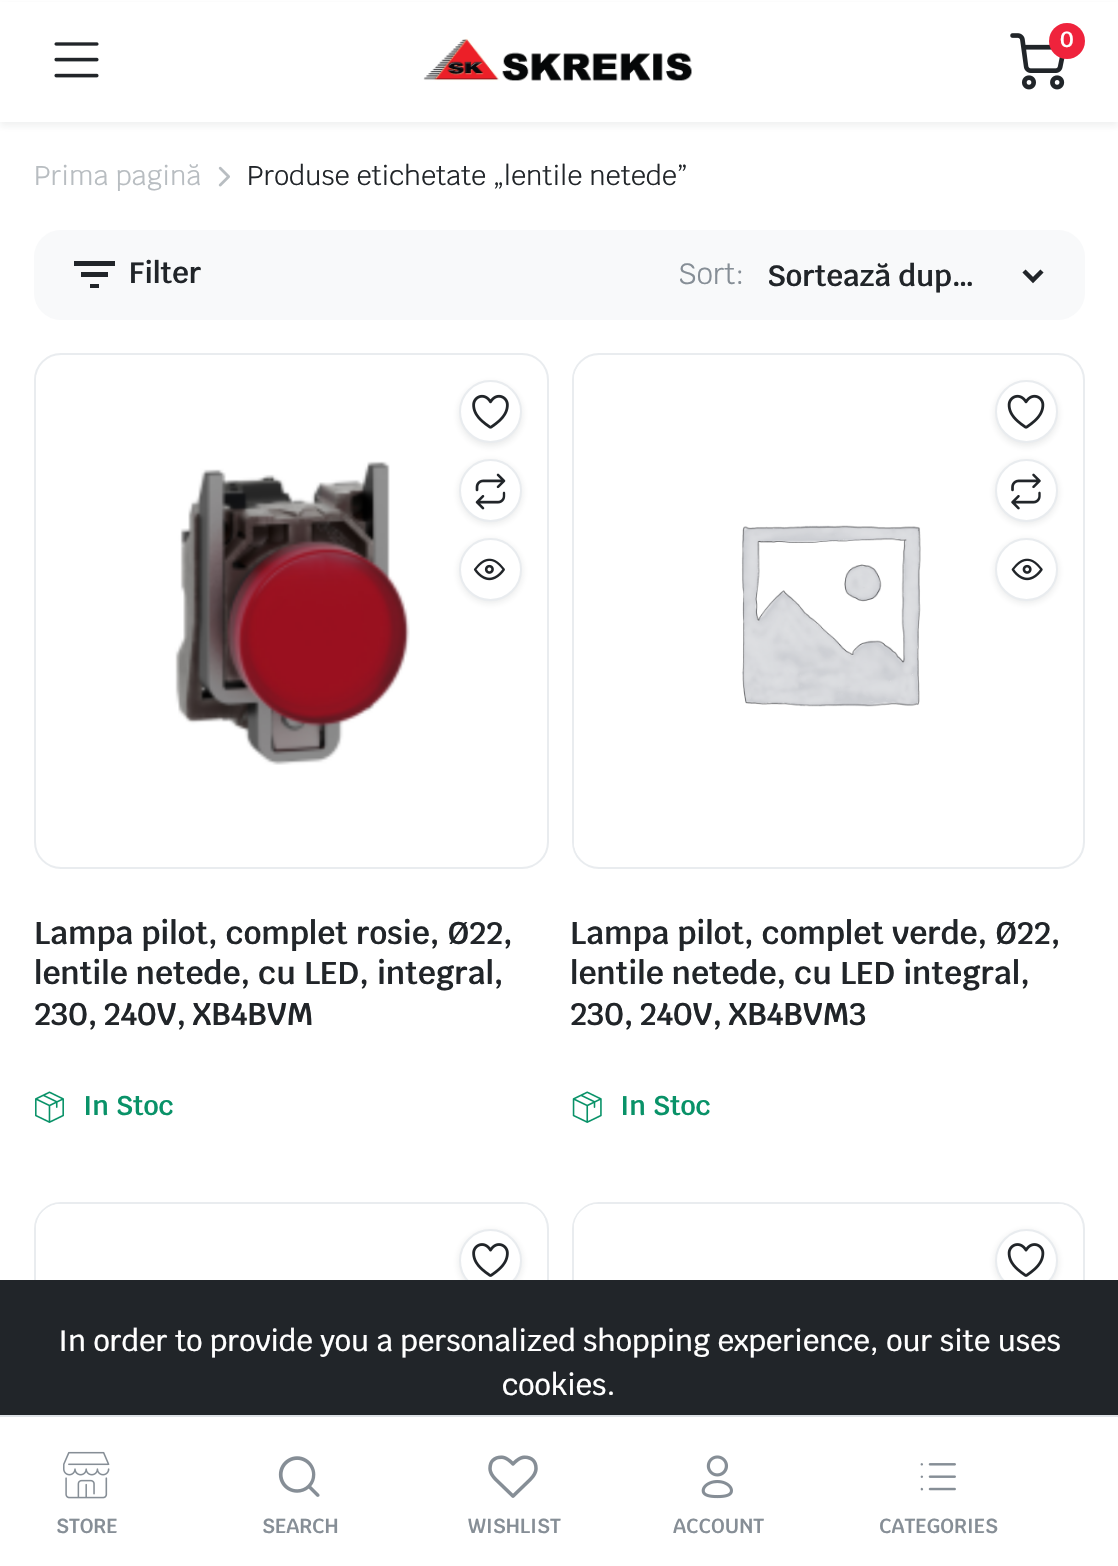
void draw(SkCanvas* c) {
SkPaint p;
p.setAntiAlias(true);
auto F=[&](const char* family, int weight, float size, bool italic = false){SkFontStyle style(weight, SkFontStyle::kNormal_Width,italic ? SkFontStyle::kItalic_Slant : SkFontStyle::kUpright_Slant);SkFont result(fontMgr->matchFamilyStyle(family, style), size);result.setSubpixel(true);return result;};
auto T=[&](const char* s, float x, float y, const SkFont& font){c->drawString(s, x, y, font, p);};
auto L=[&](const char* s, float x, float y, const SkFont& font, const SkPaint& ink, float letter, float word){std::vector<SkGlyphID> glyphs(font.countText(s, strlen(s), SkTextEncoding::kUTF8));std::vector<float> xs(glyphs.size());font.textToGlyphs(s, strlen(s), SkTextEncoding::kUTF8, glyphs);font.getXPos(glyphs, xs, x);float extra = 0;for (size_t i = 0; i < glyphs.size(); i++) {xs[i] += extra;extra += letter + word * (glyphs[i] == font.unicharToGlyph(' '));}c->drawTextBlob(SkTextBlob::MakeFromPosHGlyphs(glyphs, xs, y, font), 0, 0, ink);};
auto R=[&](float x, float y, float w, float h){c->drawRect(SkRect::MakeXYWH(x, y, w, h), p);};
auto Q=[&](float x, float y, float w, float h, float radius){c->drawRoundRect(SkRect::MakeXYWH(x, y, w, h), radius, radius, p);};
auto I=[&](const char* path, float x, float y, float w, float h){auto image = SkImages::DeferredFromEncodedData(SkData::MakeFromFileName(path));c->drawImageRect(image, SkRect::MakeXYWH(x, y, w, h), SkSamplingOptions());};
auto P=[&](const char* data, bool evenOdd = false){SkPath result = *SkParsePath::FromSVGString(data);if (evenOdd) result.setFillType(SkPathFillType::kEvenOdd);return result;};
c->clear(0xffffffff);
p.setColor(0x12212529);
p.setMaskFilter(SkMaskFilter::MakeBlur(kNormal_SkBlurStyle, 3.5));
c->drawRect(SkRect::MakeXYWH(0,5,1118,121),p);
p.setMaskFilter(nullptr);
p.setColor(0xffffffff);
R(0,2,1118,120);
I("1.png",54,42,45,36);
I("2.png",423,38,269,43);
I("3.png",1010,33,55,57);
p.setColor(0xffef233c);
c->drawCircle(1067,41,18,p);
auto f1 = F("Krub",600,22);
p.setColor(0xffffffff);
L("0",1060,47,f1,p,-.07,0);
auto f2 = F("Krub",400,27);
p.setColor(0xffb8bdc1);
L("Prima pagină",34,185,f2,p,-.07,0);
I("4.png",218,166,12,21);
p.setColor(0xff212529);
L("Produse etichetate „lentile netede”",247,185,f2,p,-.07,0);
p.setColor(0xfff8f9fa);
Q(34,230,1051,90,27);
p.setColor(0xff212529);
c->drawPath(P("M90 288h9v-4h-9zm-16-27v5h41v-5zm7 16h27v-5h-27z"),p);
auto f3 = F("Krub",600,29.25);
L("Filter",129,283,f3,p,-.07,0);
auto f4 = F("Krub",400,29.25);
p.setColor(0xff868e96);
L("Sort:",678,284,f4,p,-.07,0);
p.setStroke(true);
p.setStrokeWidth(4.5);
p.setColor(0xff212529);
c->drawPath(P("M1024 271l9 9l9-9"),p);
p.setStroke(false);
T("Sortează dup…",767,286,f3);
p.setStroke(true);
p.setStrokeWidth(2);
p.setColor(0xffe9ecef);
c->drawRoundRect(SkRect::MakeXYWH(35,354,513,514),26,26,p);
I("5.png",36,375,374,390);
p.setStroke(false);
p.setColor(0x1a212529);
p.setMaskFilter(SkMaskFilter::MakeBlur(kNormal_SkBlurStyle, 3.5));
c->drawRoundRect(SkRect::MakeXYWH(459,383,63,63),31.5,31.5,p);
p.setMaskFilter(nullptr);
p.setColor(0xffffffff);
c->drawCircle(490.5,411.5,30.5,p);
p.setStroke(true);
p.setColor(0xffe9ecef);
c->drawCircle(490.5,411.5,30.5,p);
I("6.png",472,394,37,35);
p.setStroke(false);
p.setColor(0x1a212529);
p.setMaskFilter(SkMaskFilter::MakeBlur(kNormal_SkBlurStyle, 3.5));
c->drawRoundRect(SkRect::MakeXYWH(459,461,63,63),31.5,31.5,p);
p.setMaskFilter(nullptr);
p.setColor(0xffffffff);
c->drawCircle(490.5,490.5,30.5,p);
p.setStroke(true);
p.setColor(0xffe9ecef);
c->drawCircle(490.5,490.5,30.5,p);
I("7.png",475,473,31,37);
p.setStroke(false);
p.setColor(0x1a212529);
p.setMaskFilter(SkMaskFilter::MakeBlur(kNormal_SkBlurStyle, 3.5));
c->drawRoundRect(SkRect::MakeXYWH(459,540,63,63),31.5,31.5,p);
p.setMaskFilter(nullptr);
p.setColor(0xffffffff);
c->drawCircle(490.5,569.5,30.5,p);
p.setStroke(true);
p.setColor(0xffe9ecef);
c->drawCircle(490.5,569.5,30.5,p);
I("8.png",473,558,32,23);
auto f5 = F("Krub",600,31.5);
p.setStroke(false);
p.setColor(0xff212529);
T("Lampa pilot, complet rosie, Ø22,",34,944,f5);
T("lentile netede, cu LED, integral,",34,984,f5);
L("230, 240V, XB4BVM",34,1025,f5,p,0,-2);
I("9.png",35,1091,29,32);
auto f6 = F("Krub",600,27);
p.setColor(0xff099268);
L("In Stoc",83,1115,f6,p,-.07,0);
p.setStroke(true);
p.setColor(0xffe9ecef);
c->drawRoundRect(SkRect::MakeXYWH(573,354,511,514),26,26,p);
I("10.png",574,364,347,491);
p.setStroke(false);
p.setColor(0x1a212529);
p.setMaskFilter(SkMaskFilter::MakeBlur(kNormal_SkBlurStyle, 3.5));
c->drawRoundRect(SkRect::MakeXYWH(995,383,63,63),31.5,31.5,p);
p.setMaskFilter(nullptr);
p.setColor(0xffffffff);
c->drawCircle(1026.5,411.5,30.5,p);
p.setStroke(true);
p.setColor(0xffe9ecef);
c->drawCircle(1026.5,411.5,30.5,p);
I("11.png",1007,394,38,35);
p.setStroke(false);
p.setColor(0x1a212529);
p.setMaskFilter(SkMaskFilter::MakeBlur(kNormal_SkBlurStyle, 3.5));
c->drawRoundRect(SkRect::MakeXYWH(995,461,63,63),31.5,31.5,p);
p.setMaskFilter(nullptr);
p.setColor(0xffffffff);
c->drawCircle(1026.5,490.5,30.5,p);
p.setStroke(true);
p.setColor(0xffe9ecef);
c->drawCircle(1026.5,490.5,30.5,p);
I("12.png",1011,473,30,37);
p.setStroke(false);
p.setColor(0x1a212529);
p.setMaskFilter(SkMaskFilter::MakeBlur(kNormal_SkBlurStyle, 3.5));
c->drawRoundRect(SkRect::MakeXYWH(995,540,63,63),31.5,31.5,p);
p.setMaskFilter(nullptr);
p.setColor(0xffffffff);
c->drawCircle(1026.5,569.5,30.5,p);
p.setStroke(true);
p.setColor(0xffe9ecef);
c->drawCircle(1026.5,569.5,30.5,p);
I("13.png",1011,558,32,23);
p.setStroke(false);
p.setColor(0xff212529);
T("Lampa pilot, complet verde, Ø22,",570,944,f5);
T("lentile netede, cu LED integral,",570,984,f5);
L("230, 240V, XB4BVM3",570,1025,f5,p,0,-2);
I("14.png",572,1091,30,32);
p.setColor(0xff099268);
L("In Stoc",620,1115,f6,p,-.07,0);
p.setStroke(true);
p.setColor(0xffe9ecef);
c->drawRoundRect(SkRect::MakeXYWH(35,1203,513,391),26,26,p);
I("15.png",36,1204,509,76);
p.setStroke(false);
p.setColor(0x1a212529);
p.setMaskFilter(SkMaskFilter::MakeBlur(kNormal_SkBlurStyle, 3.5));
c->drawRoundRect(SkRect::MakeXYWH(459,1231,63,63),31.5,31.5,p);
p.setMaskFilter(nullptr);
p.setColor(0xffffffff);
c->drawCircle(490.5,1260.5,30.5,p);
p.setStroke(true);
p.setColor(0xffe9ecef);
c->drawCircle(490.5,1260.5,30.5,p);
I("16.png",472,1243,37,34);
c->drawRoundRect(SkRect::MakeXYWH(573,1203,511,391),26,26,p);
I("17.png",574,1204,493,76);
p.setStroke(false);
p.setColor(0x1a212529);
p.setMaskFilter(SkMaskFilter::MakeBlur(kNormal_SkBlurStyle, 3.5));
c->drawRoundRect(SkRect::MakeXYWH(995,1231,63,63),31.5,31.5,p);
p.setMaskFilter(nullptr);
p.setColor(0xffffffff);
c->drawCircle(1026.5,1260.5,30.5,p);
p.setStroke(true);
p.setColor(0xffe9ecef);
c->drawCircle(1026.5,1260.5,30.5,p);
I("18.png",1007,1243,38,34);
p.setStroke(false);
p.setColor(0xff212529);
R(0,1280,1118,135);
auto f7 = F("Krub",500,29.25);
p.setColor(0xffffffff);
L("In order to provide you a personalized shopping experience, our site uses",58,1351,f7,p,-.07,0);
L("cookies.",502,1395,f7,p,-.07,0);
R(34,1417,1051,149);
p.setColor(0xffdee2e6);
R(0,1415,1118,2);
I("19.png",63,1451,47,48);
auto f8 = F("Krub",600,20.25);
p.setColor(0xff868e96);
L("STORE",56,1533,f8,p,-.07,0);
I("20.png",278,1456,42,41);
L("SEARCH",262,1533,f8,p,-.07,0);
I("21.png",488,1455,50,43);
L("WISHLIST",468,1533,f8,p,-.07,0);
I("22.png",701,1455,32,44);
L("ACCOUNT",673,1533,f8,p,-.07,0);
I("23.png",920,1463,36,28);
L("CATEGORIES",879,1533,f8,p,-.07,0);
}
